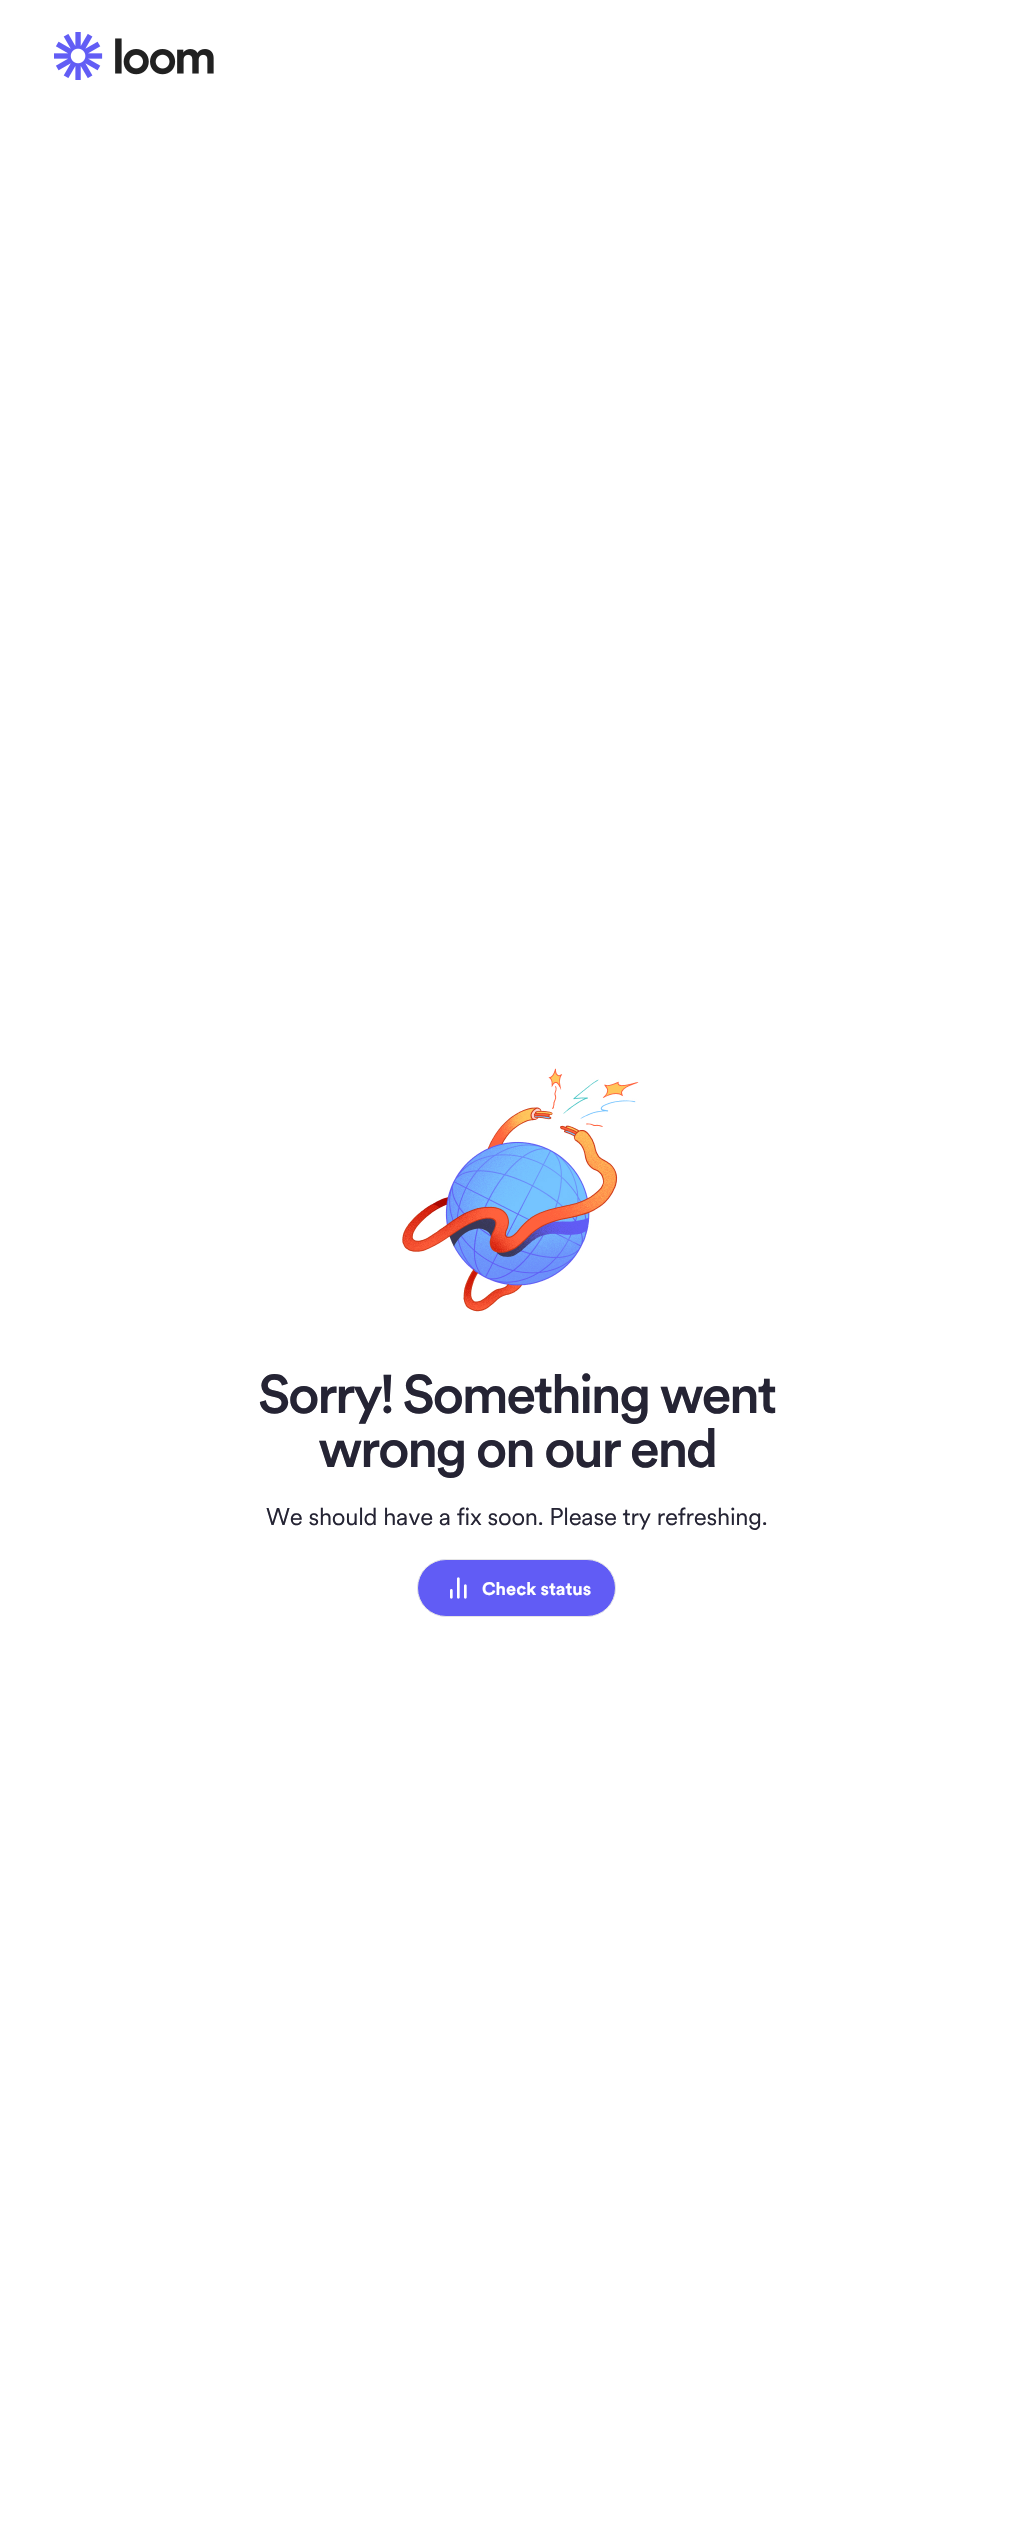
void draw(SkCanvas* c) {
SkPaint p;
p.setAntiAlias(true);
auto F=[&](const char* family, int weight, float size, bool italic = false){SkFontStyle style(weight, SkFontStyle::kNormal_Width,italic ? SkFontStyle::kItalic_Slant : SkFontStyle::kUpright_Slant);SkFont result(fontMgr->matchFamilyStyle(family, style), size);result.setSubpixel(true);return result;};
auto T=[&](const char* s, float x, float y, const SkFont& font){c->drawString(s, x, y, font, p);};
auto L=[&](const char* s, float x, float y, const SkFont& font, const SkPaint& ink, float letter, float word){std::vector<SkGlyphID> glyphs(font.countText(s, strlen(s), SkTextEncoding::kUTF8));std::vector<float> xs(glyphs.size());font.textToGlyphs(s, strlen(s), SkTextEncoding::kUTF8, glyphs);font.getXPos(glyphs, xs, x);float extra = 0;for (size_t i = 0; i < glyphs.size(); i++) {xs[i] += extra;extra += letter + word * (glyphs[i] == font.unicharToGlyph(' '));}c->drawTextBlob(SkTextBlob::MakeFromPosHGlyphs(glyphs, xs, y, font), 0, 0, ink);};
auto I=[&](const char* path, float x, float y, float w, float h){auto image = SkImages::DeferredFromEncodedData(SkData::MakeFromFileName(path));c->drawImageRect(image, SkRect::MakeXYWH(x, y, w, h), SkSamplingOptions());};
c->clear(0xffffffff);
I("1.png",54,32,160,48);
I("2.png",402,1068,237,244);
auto f1 = F("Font",500,54);
p.setColor(0xff252434);
L("Sorry! Something went",258,1413,f1,p,-2.5,0);
L("wrong on our end",318,1467,f1,p,-2.5,0);
auto f2 = F("Font",400,24);
L("We should have a fix soon. Please try refreshing.",266,1525,f2,p,-.25,0);
p.setColor(0xff615cf5);
c->drawRoundRect(SkRect::MakeXYWH(417.5,1559.5,198,57),28.5,28.5,p);
p.setStroke(true);
p.setStrokeWidth(1);
p.setColor(0xffe5e5e5);
c->drawRoundRect(SkRect::MakeXYWH(417.5,1559.5,198,57),28.5,28.5,p);
I("3.png",450,1577,17,22);
auto f3 = F("Font",700,18);
p.setStroke(false);
p.setColor(0xffffffff);
T("Check status",482,1595,f3);
}
